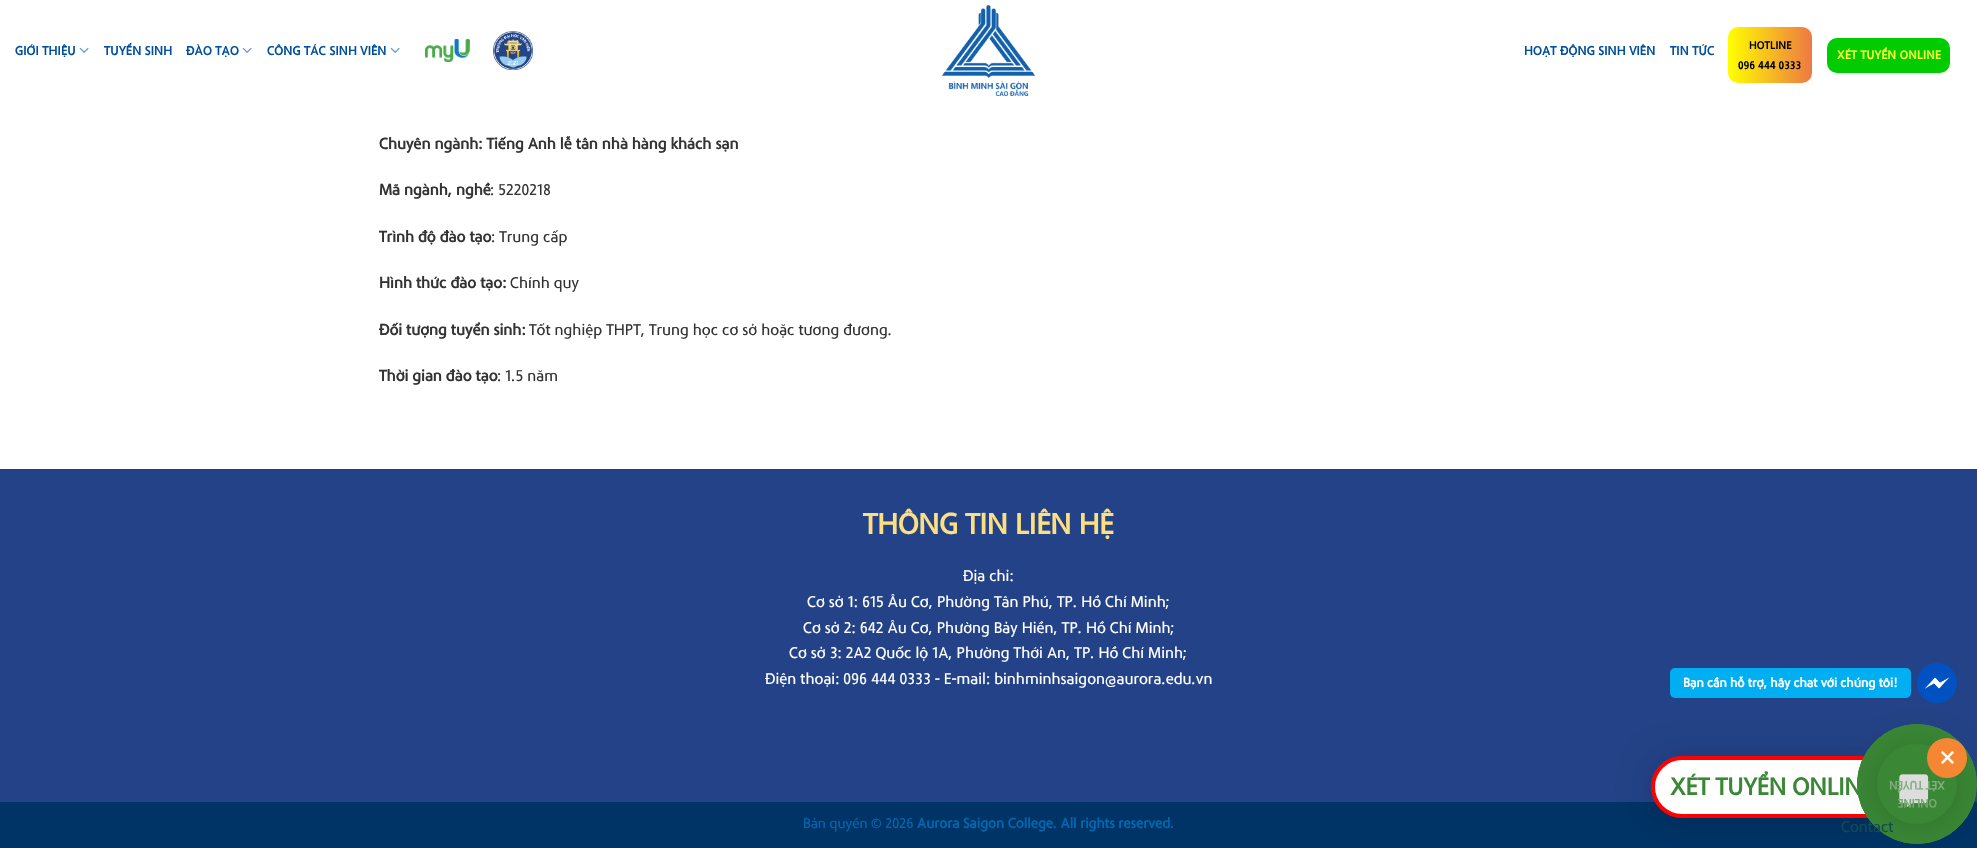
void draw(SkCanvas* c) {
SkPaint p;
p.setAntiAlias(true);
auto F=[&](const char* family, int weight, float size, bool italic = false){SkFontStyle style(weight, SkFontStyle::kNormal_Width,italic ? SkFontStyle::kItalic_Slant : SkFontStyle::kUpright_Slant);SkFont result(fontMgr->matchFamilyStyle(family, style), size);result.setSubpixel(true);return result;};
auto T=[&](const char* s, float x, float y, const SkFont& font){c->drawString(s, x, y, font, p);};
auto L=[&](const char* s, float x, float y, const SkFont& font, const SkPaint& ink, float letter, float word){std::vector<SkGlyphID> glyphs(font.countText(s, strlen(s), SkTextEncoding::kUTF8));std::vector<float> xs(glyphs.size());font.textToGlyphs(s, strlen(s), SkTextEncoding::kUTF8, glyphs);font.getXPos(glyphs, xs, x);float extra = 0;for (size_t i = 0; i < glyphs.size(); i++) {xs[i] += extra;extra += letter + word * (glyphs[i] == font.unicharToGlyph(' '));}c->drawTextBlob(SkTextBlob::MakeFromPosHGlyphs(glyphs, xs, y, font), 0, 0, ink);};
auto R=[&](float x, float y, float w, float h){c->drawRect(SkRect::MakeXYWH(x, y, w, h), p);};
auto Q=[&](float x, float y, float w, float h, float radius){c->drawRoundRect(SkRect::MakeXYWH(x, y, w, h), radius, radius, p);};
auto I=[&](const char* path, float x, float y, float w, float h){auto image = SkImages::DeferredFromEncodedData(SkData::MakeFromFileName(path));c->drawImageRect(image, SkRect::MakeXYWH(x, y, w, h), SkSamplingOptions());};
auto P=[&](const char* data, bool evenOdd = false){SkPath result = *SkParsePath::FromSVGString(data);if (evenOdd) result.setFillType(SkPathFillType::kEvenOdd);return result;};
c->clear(0xffffffff);
auto f1 = F("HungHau",700,12.75);
p.setColor(0xff00509d);
L("GIỚI THIỆU",15,55,f1,p,.25,0);
I("1.png",79,47,10,6);
L("TUYỂN SINH",104,55,f1,p,.25,0);
L("ĐÀO TẠO",186,55,f1,p,.25,0);
I("1.png",242,47,10,6);
L("CÔNG TÁC SINH VIÊN",267,55,f1,p,.25,0);
I("1.png",390,47,10,6);
I("2.png",425,39,45,23);
I("3.png",493,31,40,39);
I("4.png",942,5,93,91);
L("HOẠT ĐỘNG SINH VIÊN",1524,55,f1,p,.25,0);
L("TIN TỨC",1670,55,f1,p,.25,0);
{
const SkColor colors[] = {0xffffff00,0xffee7942};
const float stops[] = {0,1};
const SkPoint ends[] = {{1728,55}, {1812,55}};
p.setShader(SkGradientShader::MakeLinear(ends, colors, stops, 2, SkTileMode::kClamp));
p.setAlpha(255);
}
Q(1728,27,84,56,10);
auto f2 = F("HungHau",700,11);
p.setShader(nullptr);
p.setColor(0xff000000);
L("HOTLINE",1749,49,f2,p,.25,0);
L("096 444 0333",1738,69,f2,p,.25,0);
p.setColor(0xff00cc00);
Q(1827,38,123,35,10);
auto f3 = F("HungHau",700,12);
p.setColor(0xffffff33);
L("XÉT TUYỂN ONLINE",1837,59,f3,p,.4,0);
auto f4 = F("HungHau",700,16);
p.setColor(0xff333333);
T("Chuyên ngành: Tiếng Anh lễ tân nhà hàng khách sạn",379,149,f4);
T("Mã ngành, nghề",379,195,f4);
auto f5 = F("HungHau",400,16);
T(": 5220218",490,195,f5);
T("Trình độ đào tạo",379,242,f4);
T(": Trung cấp",491,242,f5);
T("Hình thức đào tạo:",379,288,f4);
T("Chính quy",510,288,f5);
T("Đối tượng tuyển sinh:",379,335,f4);
T("Tốt nghiệp THPT, Trung học cơ sở hoặc tương đương.",529,335,f5);
T("Thời gian đào tạo",379,381,f4);
T(": 1.5 năm",497,381,f5);
p.setColor(0xff234287);
R(0,470,1977,332);
p.setColor(0xff213f80);
R(0,469,1977,1);
auto f6 = F("HungHau",700,30);
p.setColor(0xfffbdf81);
T("THÔNG TIN LIÊN HỆ",863,534,f6);
p.setColor(0xffffffff);
T("Địa chỉ:",963,581,f5);
T("Cơ sở 1: 615 Âu Cơ, Phường Tân Phú, TP. Hồ Chí Minh;",807,607,f5);
T("Cơ sở 2: 642 Âu Cơ, Phường Bảy Hiền, TP. Hồ Chí Minh;",803,633,f5);
T("Cơ sở 3: 2A2 Quốc lộ 1A, Phường Thới An, TP. Hồ Chí Minh;",789,658,f5);
T("Điện thoại: 096 444 0333 - E-mail: binhminhsaigon@aurora.edu.vn",765,684,f5);
p.setColor(0xff003366);
R(0,802,1977,46);
auto f7 = F("HungHau",400,14.4);
p.setColor(0xff0067b1);
T("Bản quyền © 2026",803,828,f7);
auto f8 = F("HungHau",700,14.4);
T("Aurora Saigon College. All rights reserved.",917,828,f8);
p.setColor(0x29000000);
p.setMaskFilter(SkMaskFilter::MakeBlur(kNormal_SkBlurStyle, 16));
c->drawRoundRect(SkRect::MakeXYWH(1651,758,251,62),31,31,p);
p.setMaskFilter(nullptr);
p.setColor(0xffffffff);
c->drawPath(P("M1682 758h218v58h-218c-16 0-29-13-29-29c0-16 13-29 29-29z"),p);
p.setStroke(true);
p.setStrokeWidth(4);
p.setColor(0xffff0000);
c->drawPath(P("M1682 758h218v58h-218c-16 0-29-13-29-29c0-16 13-29 29-29z"),p);
p.setStrokeWidth(1);
p.setColor(0xff3a8735);
c->drawCircle(1917,784,59.5,p);
p.setStroke(false);
c->drawCircle(1917,784,59.5,p);
p.setStroke(true);
c->drawCircle(1917,784,59.5,p);
p.setStroke(false);
p.setColor(0x29000000);
p.setMaskFilter(SkMaskFilter::MakeBlur(kNormal_SkBlurStyle, 16));
c->drawRoundRect(SkRect::MakeXYWH(1877,746,80,80),40,40,p);
p.setMaskFilter(nullptr);
p.setColor(0xff00aff2);
Q(1670,668,241,30,5);
auto f9 = F("HungHau",700,13);
p.setColor(0xffffffff);
T("Bạn cần hỗ trợ, hãy chat với chúng tôi!",1683,687,f9);
p.setColor(0xff0052c2);
c->drawCircle(1937,683,20,p);
I("5.png",1924,677,26,12);
p.setColor(0xff3a8735);
c->drawCircle(1917,784,40,p);
I("7.png",1899,774,30,33);
p.setColor(0xfff58634);
c->drawCircle(1947,758,20,p);
I("6.png",1941,751,13,13);
p.setColor(0xff124b52);
T("Contact",1841,832,f5);
auto f10 = F("HungHau",700,25);
p.setColor(0xff3a8735);
T("XÉT TUYỂN ONLIN",1670,795,f10);
p.setColor(0xff85af82);
c->save();
c->rotate(180,1945,781);
T("XÉT TUYỂN",1945,781,f3);
c->restore();
p.setColor(0xff78a875);
c->save();
c->rotate(180,1937,799);
T("ONLINE",1937,799,f3);
c->restore();
}
